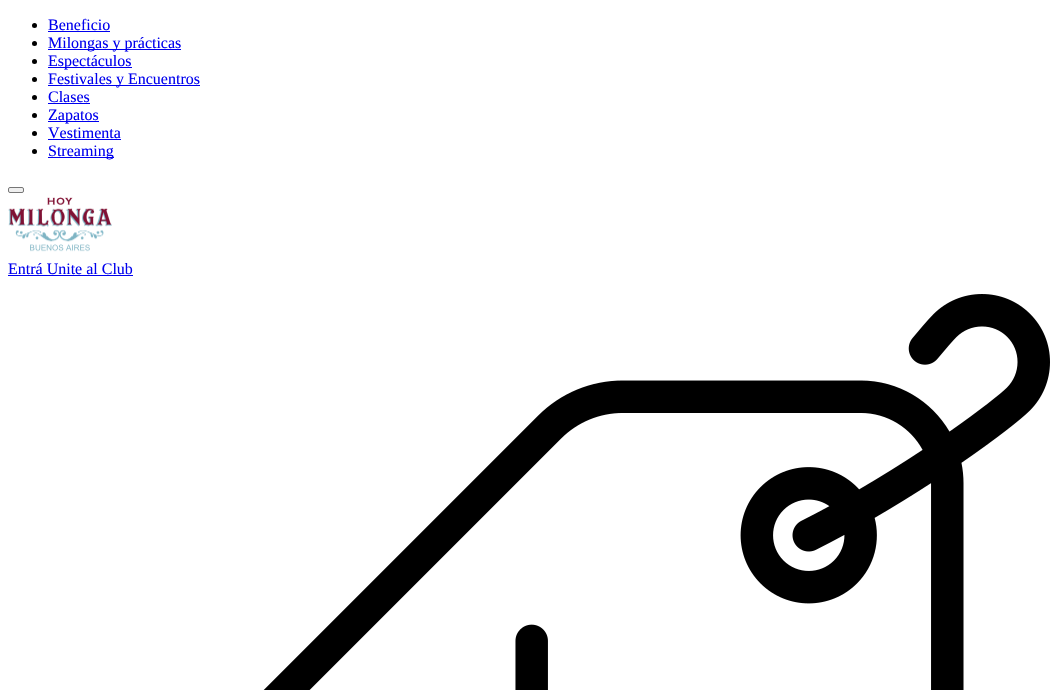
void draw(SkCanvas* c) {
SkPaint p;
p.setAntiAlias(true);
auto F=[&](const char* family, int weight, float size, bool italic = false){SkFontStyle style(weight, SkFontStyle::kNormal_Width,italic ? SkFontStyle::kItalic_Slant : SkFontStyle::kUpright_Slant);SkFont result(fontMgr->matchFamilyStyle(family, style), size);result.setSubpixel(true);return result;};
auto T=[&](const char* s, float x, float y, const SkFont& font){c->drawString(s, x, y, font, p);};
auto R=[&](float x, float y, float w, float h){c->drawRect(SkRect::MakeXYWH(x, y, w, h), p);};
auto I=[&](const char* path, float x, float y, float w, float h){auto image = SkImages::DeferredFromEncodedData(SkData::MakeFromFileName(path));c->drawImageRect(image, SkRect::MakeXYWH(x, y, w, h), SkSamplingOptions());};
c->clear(0xffffffff);
p.setColor(0xff000000);
c->drawCircle(34.5,25.5,2.5,p);
auto f1 = F("Liberation Serif",400,16);
p.setColor(0xff0000ee);
T("Beneficio",48,30,f1);
R(48,31,62,1);
p.setColor(0xff000000);
c->drawCircle(34.5,43.5,2.5,p);
p.setColor(0xff0000ee);
R(48,49,133,1);
T("Milongas y prácticas",48,48,f1);
p.setColor(0xff000000);
c->drawCircle(34.5,61.5,2.5,p);
p.setColor(0xff0000ee);
R(48,67,84,1);
T("Espectáculos",48,66,f1);
p.setColor(0xff000000);
c->drawCircle(34.5,79.5,2.5,p);
p.setColor(0xff0000ee);
R(48,85,152,1);
T("Festivales y Encuentros",48,84,f1);
p.setColor(0xff000000);
c->drawCircle(34.5,97.5,2.5,p);
p.setColor(0xff0000ee);
T("Clases",48,102,f1);
R(48,103,42,1);
p.setColor(0xff000000);
c->drawCircle(34.5,115.5,2.5,p);
p.setColor(0xff0000ee);
R(48,121,51,1);
T("Zapatos",48,120,f1);
p.setColor(0xff000000);
c->drawCircle(34.5,133.5,2.5,p);
p.setColor(0xff0000ee);
T("Vestimenta",48,138,f1);
R(48,139,73,1);
p.setColor(0xff000000);
c->drawCircle(34.5,151.5,2.5,p);
p.setColor(0xff0000ee);
R(48,157,66,1);
T("Streaming",48,156,f1);
p.setColor(0xffefefef);
c->drawRoundRect(SkRect::MakeXYWH(8.5,187.5,15,5),1.5,1.5,p);
p.setStroke(true);
p.setStrokeWidth(1);
p.setColor(0xff767676);
c->drawRoundRect(SkRect::MakeXYWH(8.5,187.5,15,5),1.5,1.5,p);
I("1.png",8,197,104,55);
p.setStroke(false);
p.setColor(0xff0000ee);
T("Entrá Unite al Club",8,274,f1);
R(8,275,125,1);
I("2.png",263,294,787,396);
}
